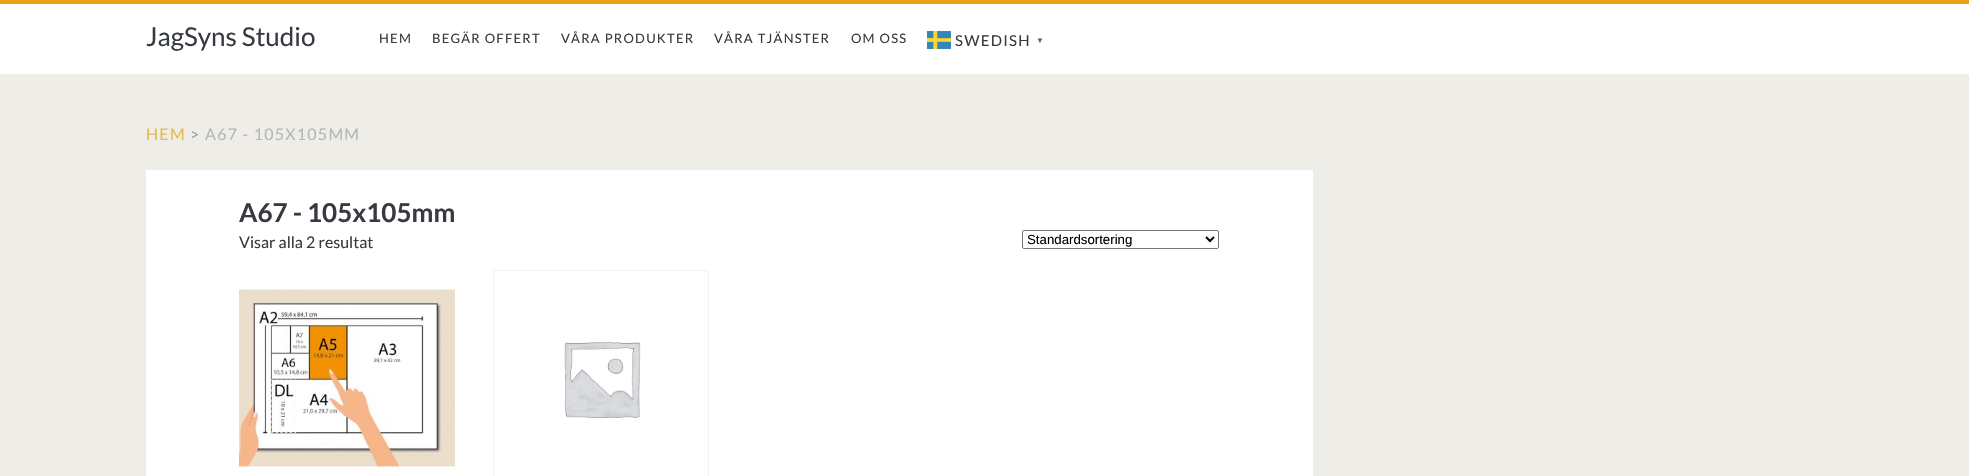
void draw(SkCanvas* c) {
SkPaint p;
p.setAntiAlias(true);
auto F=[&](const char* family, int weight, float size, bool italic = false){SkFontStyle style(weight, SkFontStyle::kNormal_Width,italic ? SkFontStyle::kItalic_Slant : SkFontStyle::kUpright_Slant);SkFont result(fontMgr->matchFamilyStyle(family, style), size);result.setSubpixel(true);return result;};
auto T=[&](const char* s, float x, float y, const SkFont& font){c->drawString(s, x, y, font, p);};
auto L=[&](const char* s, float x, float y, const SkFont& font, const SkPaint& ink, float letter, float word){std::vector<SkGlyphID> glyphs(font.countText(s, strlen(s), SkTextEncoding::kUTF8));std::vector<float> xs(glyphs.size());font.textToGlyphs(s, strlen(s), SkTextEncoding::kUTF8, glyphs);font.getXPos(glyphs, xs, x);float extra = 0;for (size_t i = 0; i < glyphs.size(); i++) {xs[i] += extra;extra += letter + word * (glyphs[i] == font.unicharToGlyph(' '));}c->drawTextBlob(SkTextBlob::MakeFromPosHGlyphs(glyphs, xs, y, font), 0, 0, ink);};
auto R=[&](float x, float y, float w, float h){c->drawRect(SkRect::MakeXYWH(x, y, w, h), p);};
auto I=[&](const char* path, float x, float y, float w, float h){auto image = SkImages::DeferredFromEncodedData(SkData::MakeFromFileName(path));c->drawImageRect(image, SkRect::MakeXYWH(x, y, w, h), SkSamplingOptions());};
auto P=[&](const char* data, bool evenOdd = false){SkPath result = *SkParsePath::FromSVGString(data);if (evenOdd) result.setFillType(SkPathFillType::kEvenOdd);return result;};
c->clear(0xffeeede8);
p.setColor(0xffffffff);
R(0,4,1969,70);
p.setColor(0xffe6a117);
R(0,0,1969,4);
auto f1 = F("Lato",400,26);
p.setColor(0xff373b41);
T("JagSyns Studio",146,46,f1);
auto f2 = F("Lato",400,13);
L("HEM",379,43,f2,p,1.25,0);
L("BEGÄR OFFERT",432,43,f2,p,1.25,0);
L("VÅRA PRODUKTER",561,43,f2,p,1.25,0);
L("VÅRA TJÄNSTER",714,43,f2,p,1.25,0);
L("OM OSS",851,43,f2,p,1.25,0);
I("1.png",927,31,24,18);
auto f3 = F("Lato",400,15);
L("SWEDISH",955,46,f3,p,1.25,0);
auto f4 = F("Liberation Serif",700,8);
p.setColor(0xff666666);
L("▼",1036,43,f4,p,1.25,0);
auto f5 = F("Lato",400,16);
p.setColor(0xffe8b856);
L("HEM",146,140,f5,p,1.25,0);
p.setColor(0xff9e9f9f);
L(">",190,140,f5,p,1.25,0);
p.setColor(0xffb6b6b5);
L("A67 - 105X105MM",205,140,f5,p,1.25,0);
p.setColor(0xffffffff);
R(146,170,1167,306);
auto f6 = F("Lato",700,26);
p.setColor(0xff373b41);
T("A67 - 105x105mm",239,222,f6);
T("Visar alla 2 resultat",239,248,f5);
p.setStroke(true);
p.setStrokeWidth(1);
p.setColor(0xff767676);
c->drawRoundRect(SkRect::MakeXYWH(1022.5,230.5,196,18),1.5,1.5,p);
p.setStrokeWidth(2);
p.setColor(0xff000000);
c->drawPath(P("M1206 237l4 4l4-4"),p);
auto f7 = F("Liberation Sans",400,13.25);
p.setStroke(false);
T("Standardsortering",1027,244,f7);
I("2.png",239,287,216,188);
p.setStroke(true);
p.setStrokeWidth(1);
p.setColor(0xfff2f2f2);
c->drawRect(SkRect::MakeXYWH(493.5,270.5,215,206),p);
I("3.png",564,342,77,76);
}
